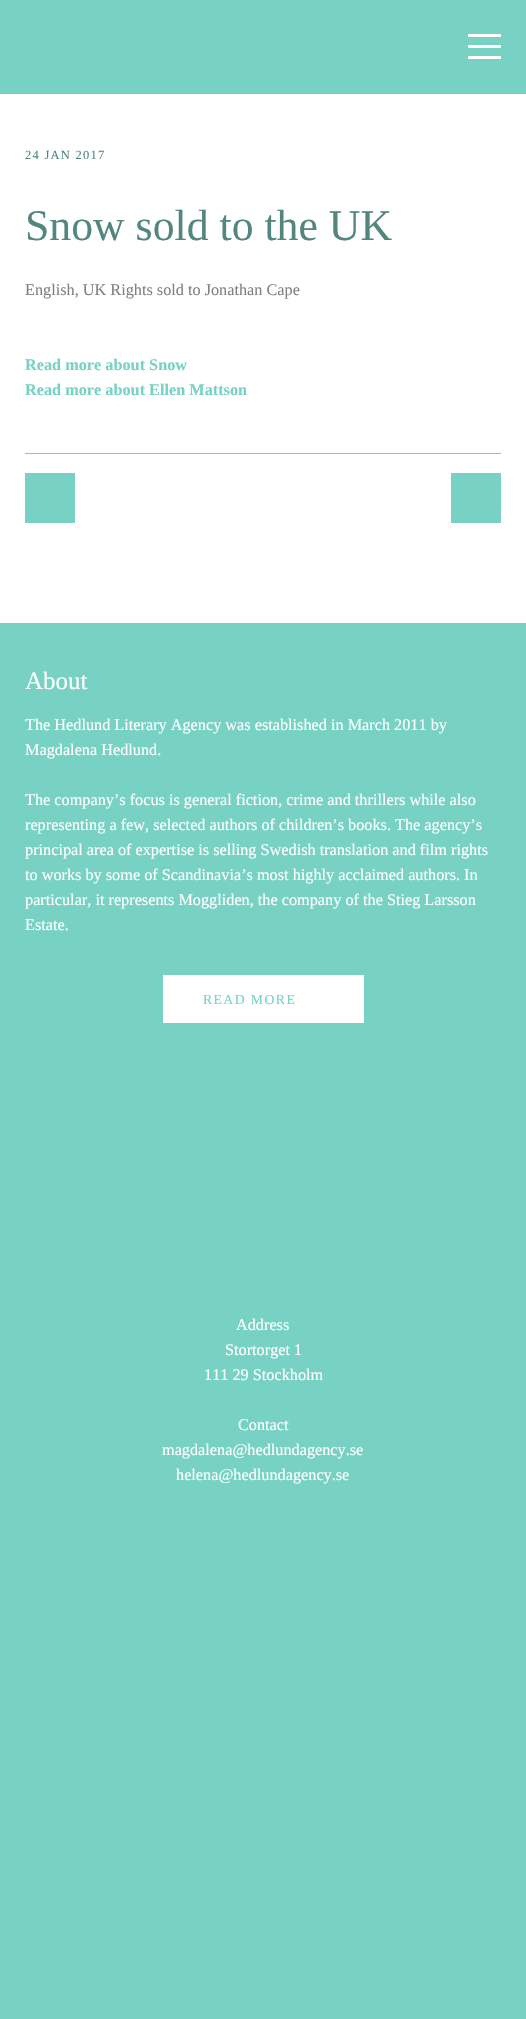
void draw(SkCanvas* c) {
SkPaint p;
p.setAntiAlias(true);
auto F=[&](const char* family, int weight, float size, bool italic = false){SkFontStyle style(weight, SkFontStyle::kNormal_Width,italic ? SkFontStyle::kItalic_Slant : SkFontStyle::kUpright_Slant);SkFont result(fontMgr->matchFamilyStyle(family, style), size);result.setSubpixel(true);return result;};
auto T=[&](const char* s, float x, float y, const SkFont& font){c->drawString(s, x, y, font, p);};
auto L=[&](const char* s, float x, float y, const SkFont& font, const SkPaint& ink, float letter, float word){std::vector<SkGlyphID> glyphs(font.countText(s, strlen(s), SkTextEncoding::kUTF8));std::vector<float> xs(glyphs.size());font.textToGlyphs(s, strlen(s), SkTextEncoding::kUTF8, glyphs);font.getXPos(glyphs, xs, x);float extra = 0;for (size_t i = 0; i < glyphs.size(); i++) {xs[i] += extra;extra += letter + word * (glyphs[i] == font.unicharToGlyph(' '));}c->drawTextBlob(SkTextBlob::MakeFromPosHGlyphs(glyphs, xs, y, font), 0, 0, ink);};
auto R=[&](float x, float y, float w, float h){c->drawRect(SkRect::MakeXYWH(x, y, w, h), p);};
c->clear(0xffffffff);
p.setColor(0xff78d2c4);
R(0,0,526,94);
p.setColor(0xffffffff);
R(468,34,33,3);
R(468,45,33,3);
R(468,56,33,3);
auto f1 = F("Liberation Serif",400,12.5);
p.setColor(0xff53867f);
L("24 JAN 2017",25,159,f1,p,1.25,0);
auto f2 = F("Liberation Serif",400,43.75);
T("Snow sold to the UK",25,240,f2);
auto f3 = F("Liberation Serif",400,16.25);
p.setColor(0xff808080);
T("English, UK Rights sold to Jonathan Cape",25,295,f3);
auto f4 = F("Liberation Serif",700,16.25);
p.setColor(0xff78d2c4);
T("Read more about Snow",25,370,f4);
T("Read more about Ellen Mattson",25,395,f4);
R(25,453,476,1);
R(25,473,50,50);
R(451,473,50,50);
R(0,623,526,1396);
auto f5 = F("Liberation Serif",400,25);
p.setColor(0xffffffff);
T("About",25,689,f5);
T("The Hedlund Literary Agency was established in March 2011 by",25,730,f3);
T("Magdalena Hedlund.",25,755,f3);
T("The company’s focus is general fiction, crime and thrillers while also",25,805,f3);
T("representing a few, selected authors of children’s books. The agency’s",25,830,f3);
T("principal area of expertise is selling Swedish translation and film rights",25,855,f3);
T("to works by some of Scandinavia’s most highly acclaimed authors. In",25,880,f3);
T("particular, it represents Moggliden, the company of the Stieg Larsson",25,905,f3);
T("Estate.",25,930,f3);
R(163,975,201,48);
auto f6 = F("Liberation Serif",400,13.75);
p.setColor(0xff78d2c4);
L("READ MORE",203,1004,f6,p,1.4,0);
p.setColor(0xffffffff);
T("Address",236,1330,f3);
T("Stortorget 1",225,1355,f3);
T("111 29 Stockholm",204,1380,f3);
T("Contact",238,1430,f3);
T("magdalena@hedlundagency.se",162,1455,f3);
T("helena@hedlundagency.se",176,1480,f3);
}
